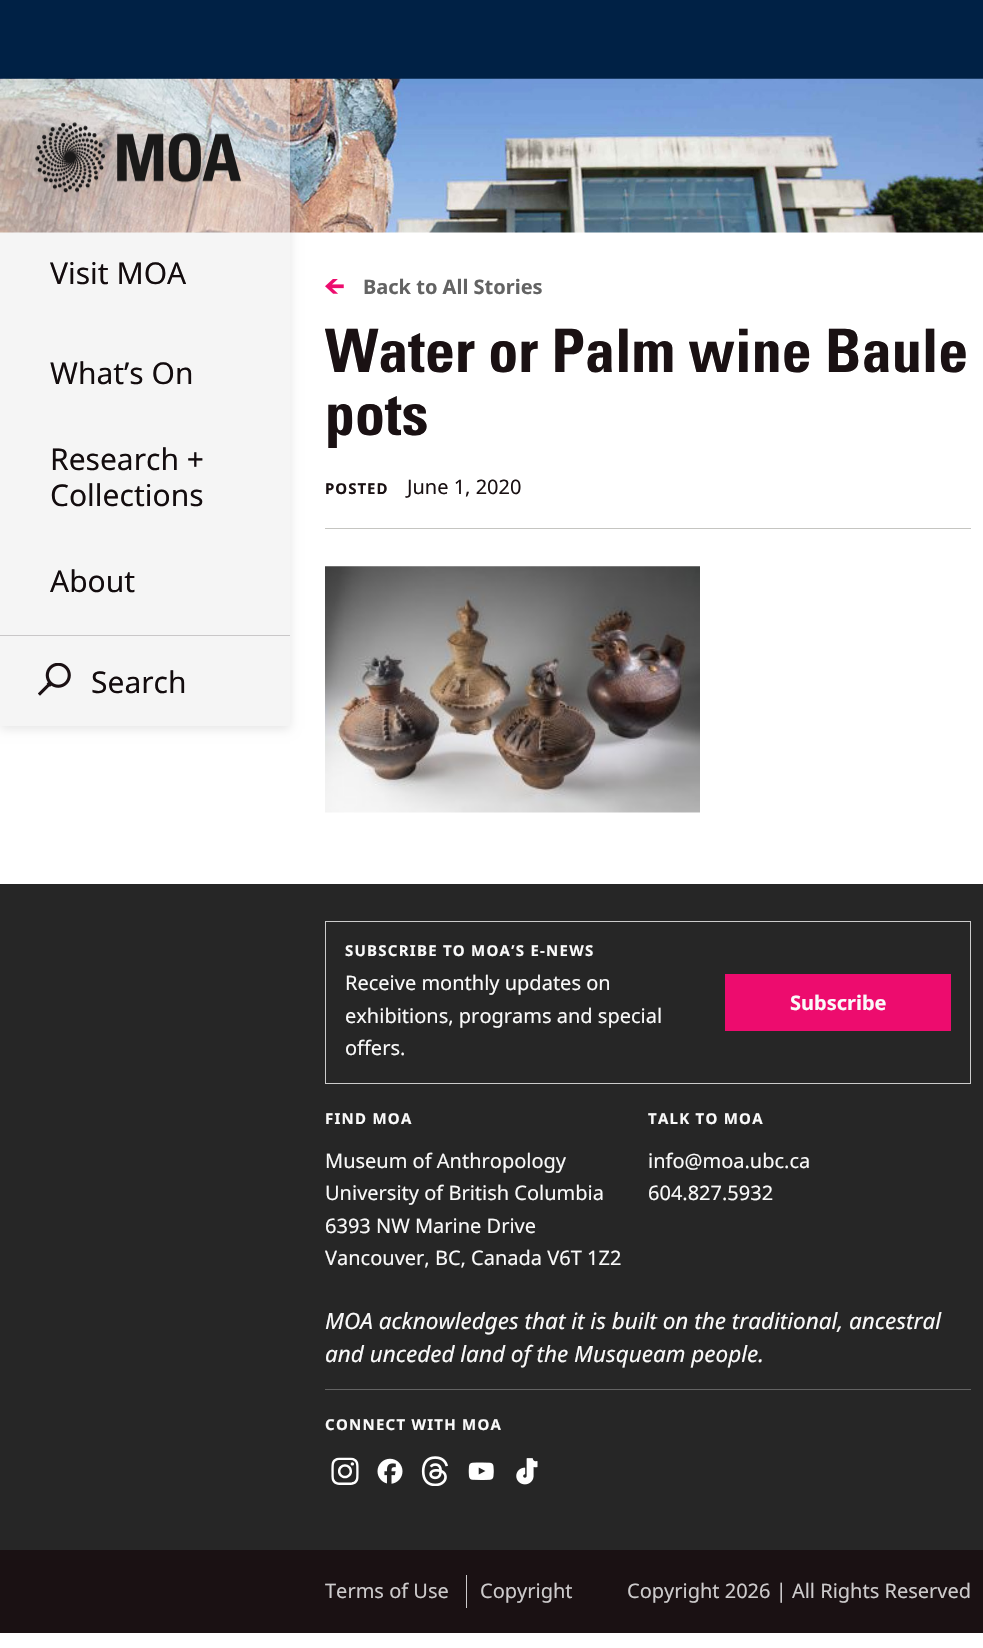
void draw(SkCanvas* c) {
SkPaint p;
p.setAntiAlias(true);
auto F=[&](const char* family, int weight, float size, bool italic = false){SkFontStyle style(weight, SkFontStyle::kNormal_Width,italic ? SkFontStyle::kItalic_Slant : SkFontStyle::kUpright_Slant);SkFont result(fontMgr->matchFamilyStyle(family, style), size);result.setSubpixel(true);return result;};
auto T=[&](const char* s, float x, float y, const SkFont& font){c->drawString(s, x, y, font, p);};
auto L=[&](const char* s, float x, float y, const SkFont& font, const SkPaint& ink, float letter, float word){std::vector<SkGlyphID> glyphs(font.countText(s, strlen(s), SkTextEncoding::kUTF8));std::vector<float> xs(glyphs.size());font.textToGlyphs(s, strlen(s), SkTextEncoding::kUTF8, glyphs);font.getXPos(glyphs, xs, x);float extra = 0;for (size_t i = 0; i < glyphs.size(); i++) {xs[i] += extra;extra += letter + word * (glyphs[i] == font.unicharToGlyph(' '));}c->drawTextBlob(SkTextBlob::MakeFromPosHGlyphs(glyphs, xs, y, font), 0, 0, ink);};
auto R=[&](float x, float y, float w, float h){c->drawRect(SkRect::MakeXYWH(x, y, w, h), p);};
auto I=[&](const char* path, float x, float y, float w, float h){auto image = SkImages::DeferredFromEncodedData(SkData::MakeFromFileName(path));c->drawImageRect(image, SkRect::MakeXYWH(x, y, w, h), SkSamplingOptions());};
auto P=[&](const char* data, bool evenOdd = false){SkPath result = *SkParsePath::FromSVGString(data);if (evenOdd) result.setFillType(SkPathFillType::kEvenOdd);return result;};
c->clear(0xffffffff);
p.setColor(0xff002145);
R(0,0,983,79);
I("1.png",0,78,983,155);
c->save();
c->clipPath(P("M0 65h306v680h-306zm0 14h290v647h-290z",true),true);
p.setColor(0x1a000000);
p.setMaskFilter(SkMaskFilter::MakeBlur(kNormal_SkBlurStyle, 5));
c->drawRect(SkRect::MakeXYWH(0,81,290,648),p);
p.setMaskFilter(nullptr);
c->restore();
p.setColor(0x80ebebeb);
R(0,79,290,647);
I("2.png",35,122,206,71);
auto f1 = F("Noto Sans",400,30);
p.setColor(0xff130c0e);
T("Visit MOA",50,284,f1);
T("What’s On",50,384,f1);
T("Research +",50,470,f1);
T("Collections",50,506,f1);
T("About",50,592,f1);
p.setColor(0xffc9c7c8);
R(0,635,290,1);
I("3.png",38,663,33,33);
p.setColor(0xff130c0e);
T("Search",91,693,f1);
I("4.png",325,279,19,15);
auto f2 = F("Noto Sans",700,20);
p.setColor(0xff636363);
T("Back to All Stories",363,294,f2);
auto f3 = F("Univers",700,60);
p.setColor(0xff1a1113);
T("Water or Palm wine Baule",325,372,f3);
T("pots",325,435,f3);
p.setColor(0xffc5c5c1);
R(325,528,646,1);
auto f4 = F("Noto Sans",700,15);
p.setColor(0xff1a1113);
L("POSTED",325,494,f4,p,1,0);
auto f5 = F("Noto Sans",400,20);
T("June 1, 2020",407,494,f5);
I("5.png",325,566,375,247);
p.setColor(0xff262626);
R(0,884,983,666);
p.setStroke(true);
p.setStrokeWidth(1);
p.setColor(0xffcccccc);
c->drawRect(SkRect::MakeXYWH(325.5,921.5,645,162),p);
p.setStroke(false);
p.setColor(0xfffafafa);
L("SUBSCRIBE TO MOA’S E-NEWS",345,956,f4,p,1.25,0);
T("Receive monthly updates on",345,990,f5);
T("exhibitions, programs and special",345,1023,f5);
T("offers.",345,1055,f5);
p.setColor(0xffed0c6e);
R(725,974,226,57);
p.setColor(0xfffafafa);
T("Subscribe",790,1010,f2);
L("FIND MOA",325,1124,f4,p,1.25,0);
T("Museum of Anthropology",325,1168,f5);
T("University of British Columbia",325,1200,f5);
T("6393 NW Marine Drive",325,1233,f5);
T("Vancouver, BC, Canada V6T 1Z2",325,1265,f5);
L("TALK TO MOA",648,1124,f4,p,1.25,0);
T("info@moa.ubc.ca",648,1168,f5);
T("604.827.5932",648,1200,f5);
auto f6 = F("Noto Sans",400,22.5,true);
T("MOA acknowledges that it is built on the traditional, ancestral",325,1329,f6);
T("and unceded land of the Musqueam people.",325,1362,f6);
p.setColor(0xff636363);
R(325,1389,646,1);
p.setColor(0xfffafafa);
L("CONNECT WITH MOA",325,1430,f4,p,1.25,0);
I("6.png",331,1457,28,28);
I("7.png",377,1458,26,26);
I("8.png",421,1456,27,30);
I("9.png",468,1462,26,18);
I("10.png",516,1458,22,27);
p.setColor(0xff1a1113);
R(0,1550,983,83);
p.setColor(0xffcdcbcc);
T("Terms of Use",325,1598,f5);
R(466,1575,1,33);
T("Copyright",480,1598,f5);
T("Copyright 2026 | All Rights Reserved",627,1598,f5);
}
